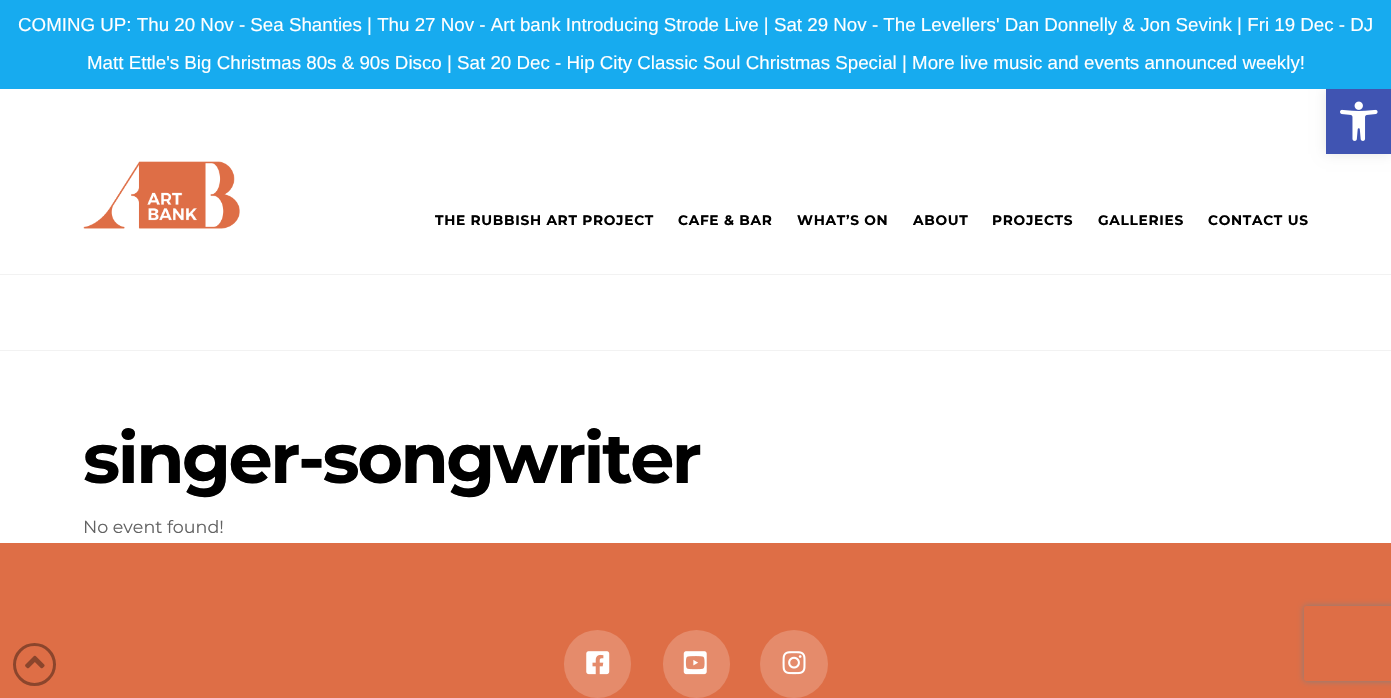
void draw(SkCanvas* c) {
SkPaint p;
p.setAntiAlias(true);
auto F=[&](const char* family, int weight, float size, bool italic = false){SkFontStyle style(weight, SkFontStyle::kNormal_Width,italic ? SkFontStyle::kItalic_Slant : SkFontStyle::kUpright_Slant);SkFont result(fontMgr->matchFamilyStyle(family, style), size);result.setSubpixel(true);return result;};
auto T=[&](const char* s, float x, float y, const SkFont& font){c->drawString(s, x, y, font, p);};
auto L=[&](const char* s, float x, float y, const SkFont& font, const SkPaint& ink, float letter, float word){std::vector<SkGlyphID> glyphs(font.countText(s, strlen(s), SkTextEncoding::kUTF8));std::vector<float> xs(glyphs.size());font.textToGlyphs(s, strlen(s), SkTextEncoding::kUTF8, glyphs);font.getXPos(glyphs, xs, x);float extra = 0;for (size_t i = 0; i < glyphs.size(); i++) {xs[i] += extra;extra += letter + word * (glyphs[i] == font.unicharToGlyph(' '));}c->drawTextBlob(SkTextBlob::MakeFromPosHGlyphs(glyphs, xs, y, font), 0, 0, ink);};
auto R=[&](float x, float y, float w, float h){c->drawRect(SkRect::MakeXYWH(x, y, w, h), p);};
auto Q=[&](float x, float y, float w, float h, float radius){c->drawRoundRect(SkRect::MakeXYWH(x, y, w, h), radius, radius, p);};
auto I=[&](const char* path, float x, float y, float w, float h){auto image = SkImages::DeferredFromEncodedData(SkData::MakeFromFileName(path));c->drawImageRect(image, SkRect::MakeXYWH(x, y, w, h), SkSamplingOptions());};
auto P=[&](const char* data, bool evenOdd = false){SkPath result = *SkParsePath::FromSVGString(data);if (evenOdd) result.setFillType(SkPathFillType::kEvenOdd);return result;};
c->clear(0xffffffff);
p.setColor(0x1a000000);
p.setMaskFilter(SkMaskFilter::MakeBlur(kNormal_SkBlurStyle, 6));
c->drawRect(SkRect::MakeXYWH(1326,89,65,65),p);
p.setMaskFilter(nullptr);
p.setColor(0xff17abef);
R(0,0,1391,89);
auto f1 = F("Liberation Sans",400,18.75);
p.setColor(0xffffffff);
T("COMING UP: Thu 20 Nov - Sea Shanties | Thu 27 Nov - Art bank Introducing Strode Live | Sat 29 Nov - The Levellers' Dan Donnelly & Jon Sevink | Fri 19 Dec - DJ",18,31,f1);
T("Matt Ettle's Big Christmas 80s & 90s Disco | Sat 20 Dec - Hip City Classic Soul Christmas Special | More live music and events announced weekly!",87,69,f1);
p.setColor(0xff4054b2);
R(1326,89,65,65);
I("1.png",1340,101,38,40);
I("2.png",83,161,157,68);
auto f2 = F("Montserrat",700,13.75);
p.setColor(0xff000000);
L("THE RUBBISH ART PROJECT",435,225,f2,p,.7,0);
L("CAFE & BAR",678,225,f2,p,.7,0);
L("WHAT’S ON",797,225,f2,p,.7,0);
L("ABOUT",913,225,f2,p,.7,0);
L("PROJECTS",992,225,f2,p,.7,0);
L("GALLERIES",1098,225,f2,p,.7,0);
L("CONTACT US",1208,225,f2,p,.7,0);
p.setColor(0xfff2f2f2);
R(0,274,1391,1);
R(0,350,1391,1);
auto f3 = F("Montserrat",700,70);
p.setColor(0xff000000);
L("singer-songwriter",83,483,f3,p,-2.5,0);
auto f4 = F("Montserrat",400,17.5);
p.setColor(0xff626262);
T("No event found!",83,533,f4);
p.setColor(0xffde6e46);
R(0,543,1391,155);
p.setColor(0xffe58b6b);
Q(564,630,67,68,33.5);
I("3.png",586,651,24,24);
Q(663,630,67,68,33.5);
I("4.png",683,651,24,24);
c->drawCircle(794,664,34,p);
I("5.png",782,651,24,24);
p.setStroke(true);
p.setStrokeWidth(3);
p.setColor(0xff8b452c);
c->drawCircle(34.5,664.5,20,p);
I("6.png",25,655,20,14);
c->save();
c->clipPath(P("M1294 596h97v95h-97zm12.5 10h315c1.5 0 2.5 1 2.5 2.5v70c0 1.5-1 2.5-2.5 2.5h-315c-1.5 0-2.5-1-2.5-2.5v-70c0-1.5 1-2.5 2.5-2.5z",true),true);
p.setStroke(false);
p.setColor(0xff808080);
p.setMaskFilter(SkMaskFilter::MakeBlur(kNormal_SkBlurStyle, 3));
c->drawRoundRect(SkRect::MakeXYWH(1304,606,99,75),2.5,2.5,p);
p.setMaskFilter(nullptr);
c->restore();
}
